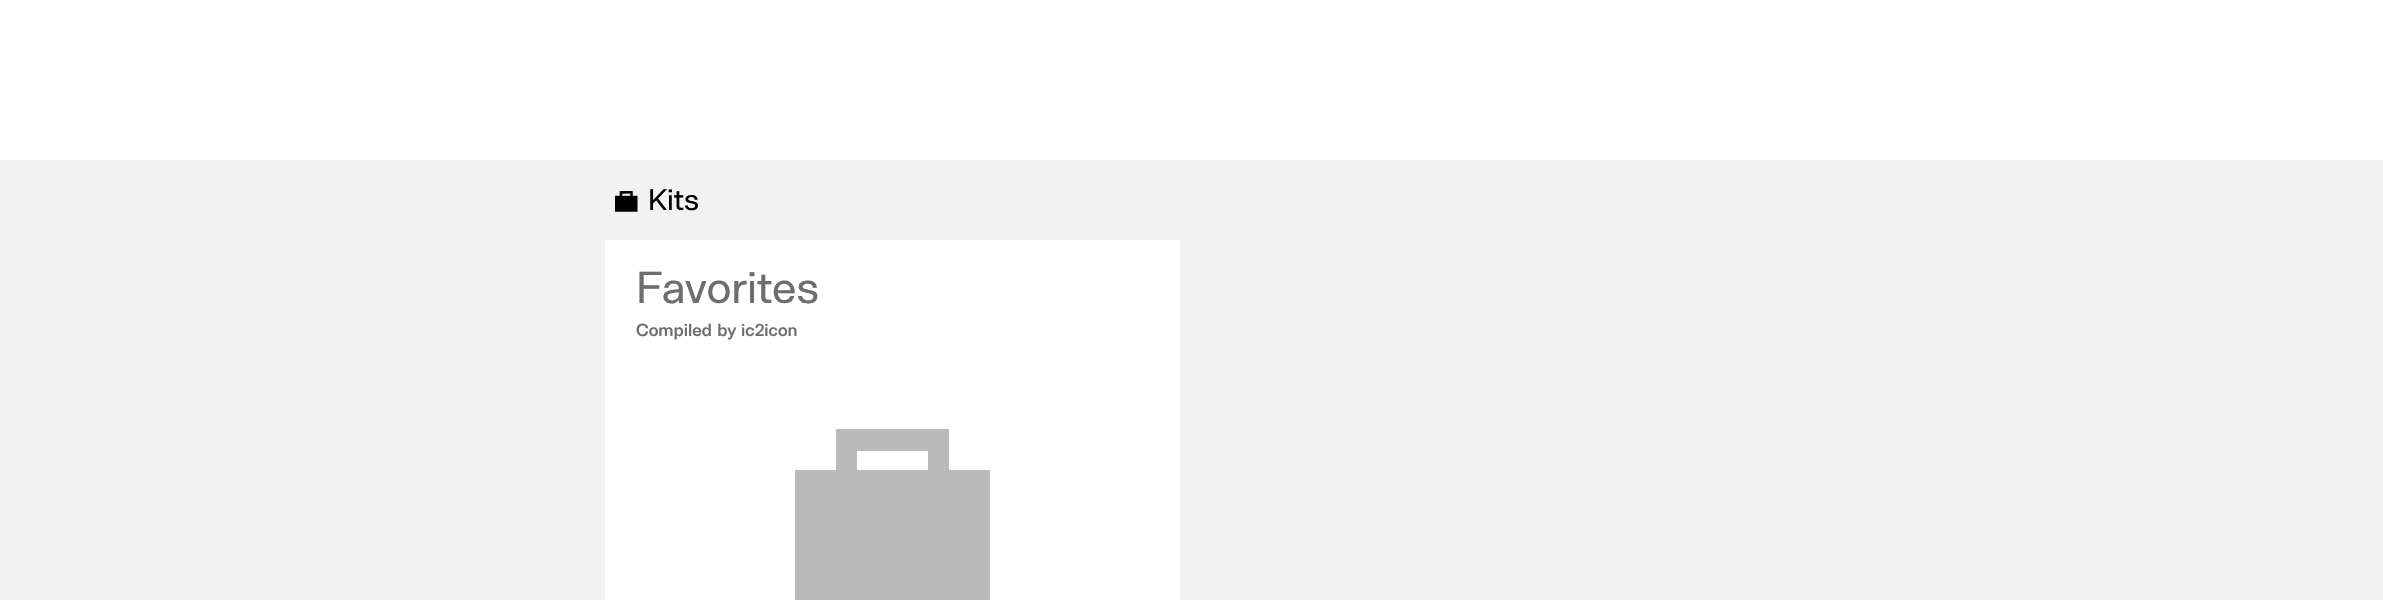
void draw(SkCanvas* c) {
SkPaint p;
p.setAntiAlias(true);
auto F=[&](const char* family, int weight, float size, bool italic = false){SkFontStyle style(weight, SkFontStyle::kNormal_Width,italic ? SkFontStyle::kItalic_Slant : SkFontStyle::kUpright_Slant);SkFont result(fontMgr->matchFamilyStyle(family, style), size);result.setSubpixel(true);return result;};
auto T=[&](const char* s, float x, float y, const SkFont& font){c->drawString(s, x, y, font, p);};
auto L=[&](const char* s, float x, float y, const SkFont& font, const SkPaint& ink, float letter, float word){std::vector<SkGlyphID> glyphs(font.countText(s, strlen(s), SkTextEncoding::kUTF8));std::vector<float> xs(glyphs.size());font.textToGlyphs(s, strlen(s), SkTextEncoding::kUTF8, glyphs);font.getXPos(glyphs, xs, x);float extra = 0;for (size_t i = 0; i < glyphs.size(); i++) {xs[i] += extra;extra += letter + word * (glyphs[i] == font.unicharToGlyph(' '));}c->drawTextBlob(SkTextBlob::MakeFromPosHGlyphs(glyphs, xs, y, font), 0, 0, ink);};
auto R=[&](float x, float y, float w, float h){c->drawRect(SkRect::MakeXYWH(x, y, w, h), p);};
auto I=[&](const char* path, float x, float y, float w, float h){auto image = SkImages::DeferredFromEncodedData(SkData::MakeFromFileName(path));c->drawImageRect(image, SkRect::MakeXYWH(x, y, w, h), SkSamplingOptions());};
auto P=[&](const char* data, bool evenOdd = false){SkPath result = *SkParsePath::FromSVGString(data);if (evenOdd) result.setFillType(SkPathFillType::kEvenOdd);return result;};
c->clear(0xfff2f2f2);
p.setColor(0xffffffff);
R(0,0,2383,160);
I("1.png",615,191,23,21);
auto f1 = F("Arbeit",400,30);
p.setColor(0xff000000);
T("Kits",648,210,f1);
p.setColor(0xffffffff);
R(605,240,575,360);
auto f2 = F("Arbeit",400,45);
p.setColor(0xff6d6d6d);
T("Favorites",636,303,f2);
auto f3 = F("Arbeit",600,17.5);
L("Compiled by",636,336,f3,p,0,2);
T("ic2icon",741,336,f3);
p.setColor(0xffbababa);
c->drawPath(P("M949 470v-41h-113v41h-41v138h195v-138zm-92-19h71v19h-71z"),p);
}
